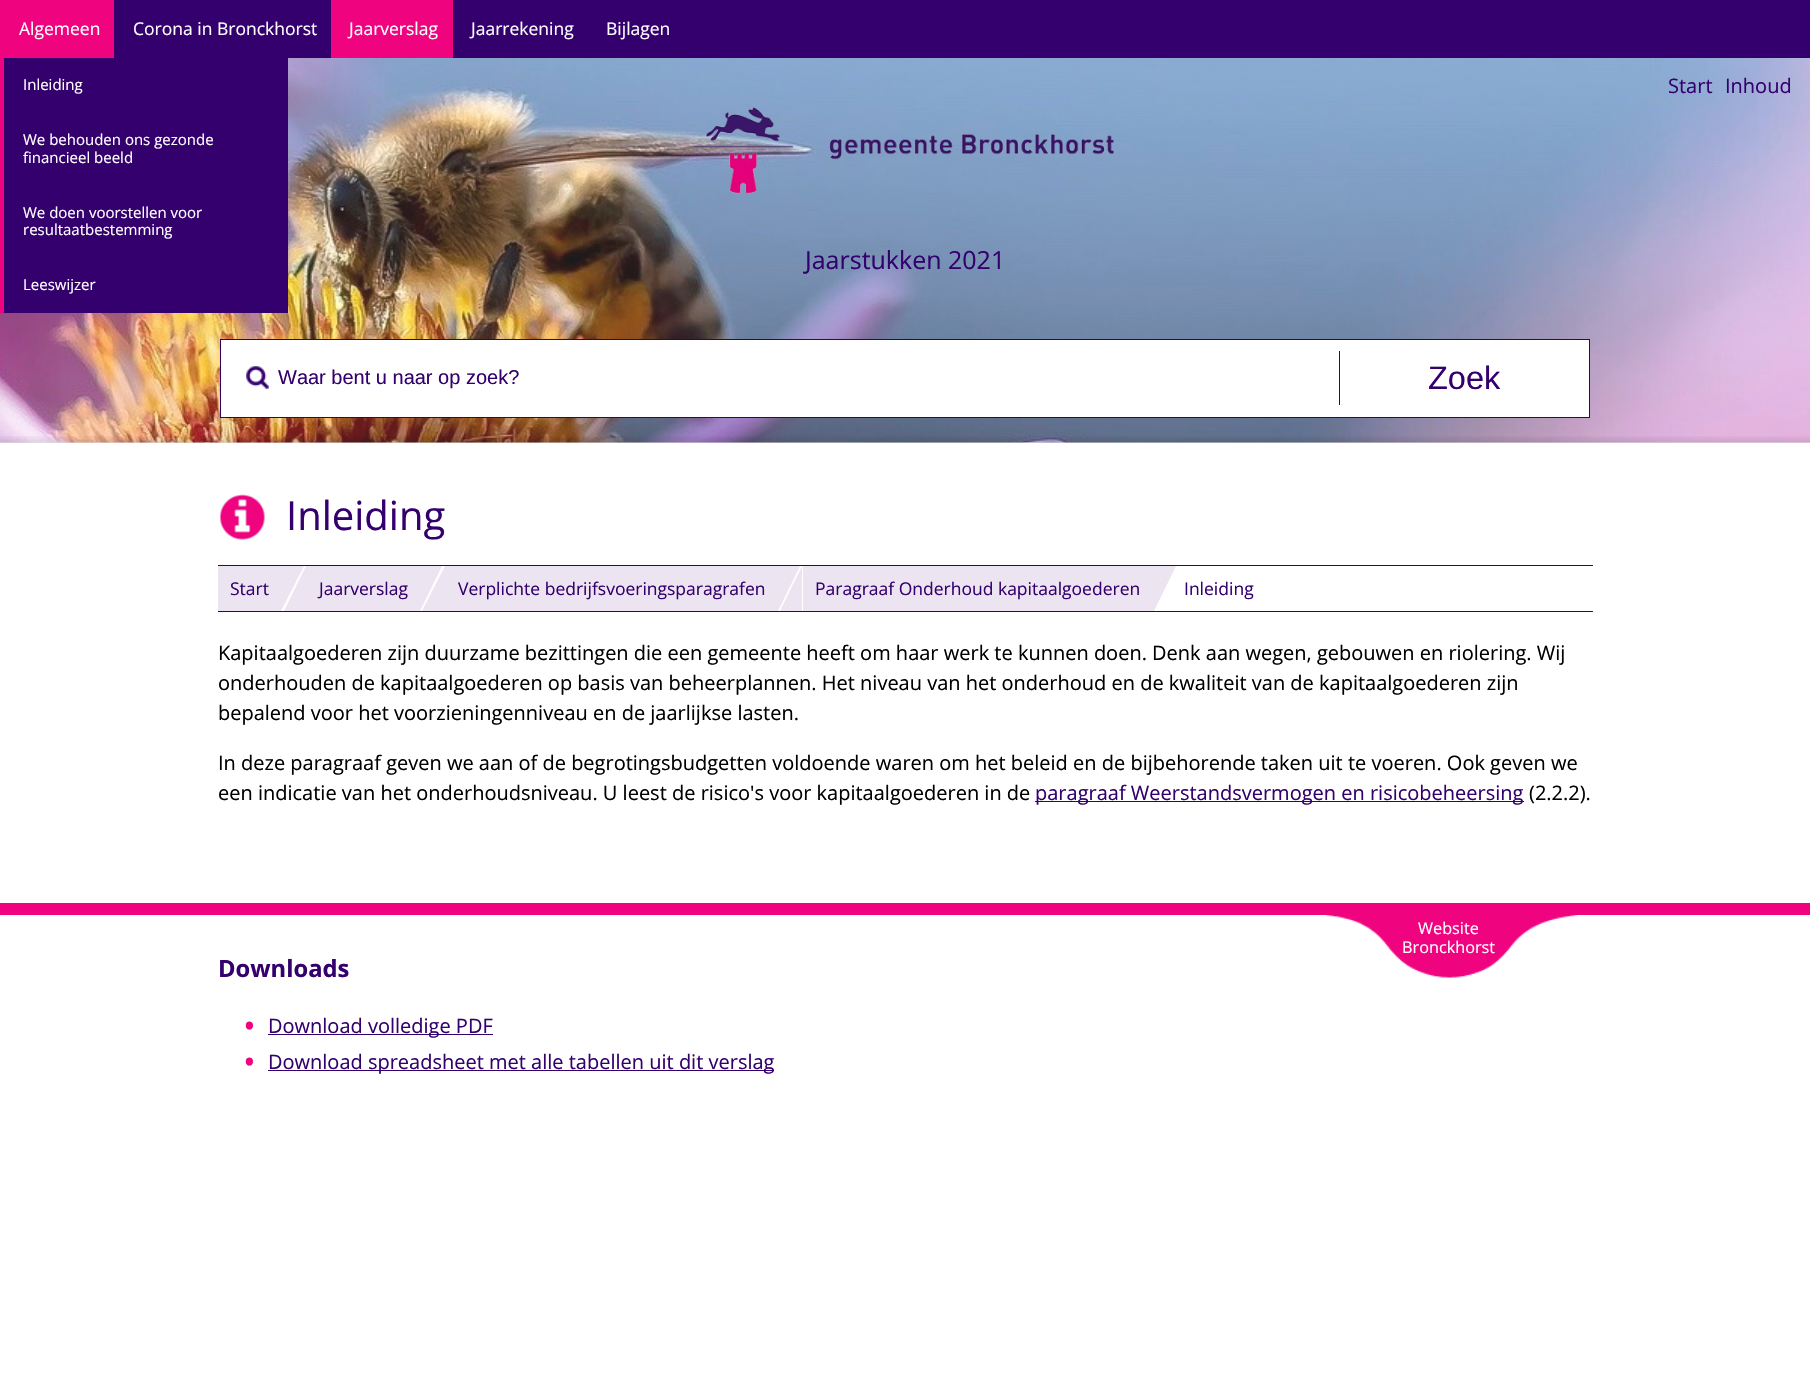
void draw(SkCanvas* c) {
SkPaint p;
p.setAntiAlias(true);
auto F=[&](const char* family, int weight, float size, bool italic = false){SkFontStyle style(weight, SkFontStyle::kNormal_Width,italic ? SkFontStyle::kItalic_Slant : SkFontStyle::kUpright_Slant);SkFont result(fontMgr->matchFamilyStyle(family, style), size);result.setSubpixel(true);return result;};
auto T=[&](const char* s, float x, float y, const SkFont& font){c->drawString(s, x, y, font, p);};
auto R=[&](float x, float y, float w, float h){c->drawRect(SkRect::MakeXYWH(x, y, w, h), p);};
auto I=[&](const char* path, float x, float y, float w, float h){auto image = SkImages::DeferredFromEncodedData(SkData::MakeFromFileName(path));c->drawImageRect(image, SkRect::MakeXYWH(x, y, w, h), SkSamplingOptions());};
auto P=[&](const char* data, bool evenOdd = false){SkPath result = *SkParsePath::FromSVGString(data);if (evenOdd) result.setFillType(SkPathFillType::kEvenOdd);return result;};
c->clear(0xffffffff);
I("1.png",0,58,1810,385);
p.setColor(0xff33006d);
R(453,0,1357,58);
p.setColor(0xffef037f);
R(0,0,114,58);
auto f1 = F("Open Sans",400,17.5);
p.setColor(0xffffffff);
T("Algemeen",19,35,f1);
p.setColor(0xffef037f);
R(0,58,4,255);
p.setColor(0xff33006d);
R(4,58,284,255);
auto f2 = F("Open Sans",400,15);
p.setColor(0xffffffff);
T("Inleiding",23,90,f2);
T("We behouden ons gezonde",23,145,f2);
T("financieel beeld",23,163,f2);
T("We doen voorstellen voor",23,218,f2);
T("resultaatbestemming",23,235,f2);
T("Leeswijzer",23,290,f2);
p.setColor(0xff33006d);
R(114,0,217,58);
p.setColor(0xffffffff);
T("Corona in Bronckhorst",133,35,f1);
p.setColor(0xffef037f);
R(331,0,122,58);
p.setColor(0xffffffff);
T("Jaarverslag",349,35,f1);
T("Jaarrekening",471,35,f1);
T("Bijlagen",606,35,f1);
auto f3 = F("Open Sans",400,20);
p.setColor(0xff33006d);
T("Start",1668,93,f3);
T("Inhoud",1725,93,f3);
I("2.png",693,107,421,87);
auto f4 = F("Open Sans",400,25);
T("Jaarstukken 2021",805,269,f4);
p.setColor(0xffffffff);
c->drawRect(SkRect::MakeXYWH(220.5,339.5,1369,78),p);
p.setStroke(true);
p.setStrokeWidth(1);
p.setColor(0xff33006d);
c->drawRect(SkRect::MakeXYWH(220.5,339.5,1369,78),p);
I("3.png",246,366,23,23);
auto f5 = F("Liberation Sans",400,20);
p.setStroke(false);
T("Waar bent u naar op zoek?",278,384,f5);
R(1339,351,1,54);
auto f6 = F("Liberation Sans",400,32.5);
T("Zoek",1428,389,f6);
{
const SkColor colors[] = {0x00000000,0x00000000,0x1a000000};
const float stops[] = {0,.3,1};
const SkPoint ends[] = {{905,430}, {905,443}};
p.setShader(SkGradientShader::MakeLinear(ends, colors, stops, 3, SkTileMode::kClamp));
p.setAlpha(255);
}
R(0,436,1810,7);
I("4.png",219,494,46,46);
auto f7 = F("Open Sans",400,40);
p.setShader(nullptr);
p.setColor(0xff33006d);
T("Inleiding",286,530,f7);
R(218,565,1375,1);
R(218,611,1375,1);
p.setColor(0xffece4f0);
R(218,566,63,45);
p.setColor(0xff33006d);
T("Start",230,595,f1);
p.setColor(0xffece4f0);
c->drawPath(P("M281 611v-45h23z"),p);
R(306,566,114,45);
c->drawPath(P("M306 566v45h-22z"),p);
p.setColor(0xff33006d);
T("Jaarverslag",319,595,f1);
p.setColor(0xffece4f0);
c->drawPath(P("M420 611v-45h22z"),p);
R(445,566,333,45);
c->drawPath(P("M445 566v45h-23z"),p);
p.setColor(0xff33006d);
T("Verplichte bedrijfsvoeringsparagrafen",458,595,f1);
p.setColor(0xffece4f0);
c->drawPath(P("M778 611v-45h22z"),p);
R(803,566,351,45);
c->drawPath(P("M802 566v45h-22z"),p);
p.setColor(0xff33006d);
T("Paragraaf Onderhoud kapitaalgoederen",815,595,f1);
p.setColor(0xffece4f0);
c->drawPath(P("M1154 611v-45h22z"),p);
p.setColor(0xff33006d);
T("Inleiding",1184,595,f1);
p.setColor(0xff000000);
T("Kapitaalgoederen zijn duurzame bezittingen die een gemeente heeft om haar werk te kunnen doen. Denk aan wegen, gebouwen en riolering. Wij",218,660,f3);
T("onderhouden de kapitaalgoederen op basis van beheerplannen. Het niveau van het onderhoud en de kwaliteit van de kapitaalgoederen zijn",218,690,f3);
T("bepalend voor het voorzieningenniveau en de jaarlijkse lasten.",218,720,f3);
T("In deze paragraaf geven we aan of de begrotingsbudgetten voldoende waren om het beleid en de bijbehorende taken uit te voeren. Ook geven we",218,770,f3);
T("een indicatie van het onderhoudsniveau. U leest de risico's voor kapitaalgoederen in de",218,800,f3);
p.setColor(0xff33006d);
R(1035,801,489,1);
T("paragraaf Weerstandsvermogen en risicobeheersing",1035,800,f3);
p.setColor(0xff000000);
T("(2.2.2).",1529,800,f3);
p.setColor(0xffef037f);
R(0,903,1810,12);
I("5.png",1326,915,252,63);
auto f8 = F("Open Sans",400,16.25);
p.setColor(0xffffffff);
T("Website",1418,934,f8);
T("Bronckhorst",1402,953,f8);
auto f9 = F("Open Sans",700,23.75);
p.setColor(0xff33006d);
T("Downloads",218,977,f9);
auto f10 = F("Open Sans",400,34);
p.setColor(0xffef037f);
T("•",243,1038,f10);
p.setColor(0xff33006d);
R(268,1034,225,1);
T("Download volledige PDF",268,1033,f3);
p.setColor(0xffef037f);
T("•",243,1074,f10);
p.setColor(0xff33006d);
R(268,1070,506,1);
T("Download spreadsheet met alle tabellen uit dit verslag",268,1069,f3);
}
